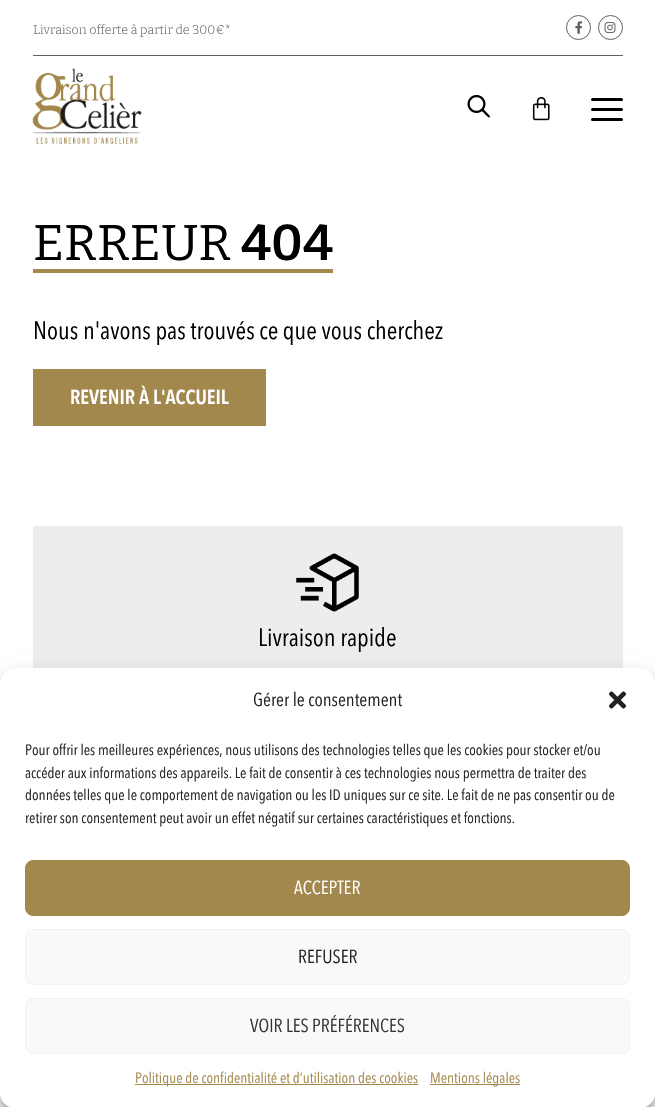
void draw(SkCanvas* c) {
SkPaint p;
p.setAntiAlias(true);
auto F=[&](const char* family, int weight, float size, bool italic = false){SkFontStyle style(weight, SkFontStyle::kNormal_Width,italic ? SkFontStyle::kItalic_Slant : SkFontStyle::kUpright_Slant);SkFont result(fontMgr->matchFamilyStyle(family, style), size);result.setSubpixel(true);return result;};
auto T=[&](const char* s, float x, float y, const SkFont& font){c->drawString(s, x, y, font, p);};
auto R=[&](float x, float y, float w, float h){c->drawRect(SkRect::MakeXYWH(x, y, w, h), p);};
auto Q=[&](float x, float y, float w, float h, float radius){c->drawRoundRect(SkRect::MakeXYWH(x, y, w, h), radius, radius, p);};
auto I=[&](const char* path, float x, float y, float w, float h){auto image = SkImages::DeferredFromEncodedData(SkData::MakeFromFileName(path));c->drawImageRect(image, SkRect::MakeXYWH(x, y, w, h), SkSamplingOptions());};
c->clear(0xffffffff);
p.setColor(0xff625e5b);
R(33,55,590,1);
auto f1 = F("Bitter",300,12.5);
T("Livraison offerte à partir de 300€*",33,34,f1);
p.setStroke(true);
p.setStrokeWidth(1);
c->drawCircle(578.5,27.5,12,p);
I("1.png",575,21,8,13);
c->drawCircle(610.5,27.5,12,p);
I("2.png",604,22,12,11);
I("3.png",32,68,110,76);
I("4.png",467,95,23,23);
I("5.png",532,97,18,24);
p.setStroke(false);
p.setColor(0xff000000);
Q(591,98,32,3,1.5);
Q(591,108,32,3,1.5);
Q(591,118,32,3,1.5);
auto f2 = F("Bitter",400,50);
T("ERREUR",33,260,f2);
auto f3 = F("Bitter",600,50);
T("404",241,260,f3);
p.setColor(0xffa3884d);
R(33,269,300,4);
auto f4 = F("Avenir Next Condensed",400,25);
p.setColor(0xff000000);
T("Nous n'avons pas trouvés ce que vous cherchez",33,339,f4);
p.setColor(0xffa3884d);
R(33,369,233,57);
auto f5 = F("Avenir Next Condensed",600,20);
p.setColor(0xffffffff);
T("REVENIR À L'ACCUEIL",70,404,f5);
p.setColor(0xffededed);
R(33,526,590,142);
I("6.png",296,553,63,59);
p.setColor(0xff000000);
T("Livraison rapide",258,646,f4);
p.setColor(0x3b000000);
p.setMaskFilter(SkMaskFilter::MakeBlur(kNormal_SkBlurStyle, 4));
c->drawRoundRect(SkRect::MakeXYWH(0,675,655,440),15,15,p);
p.setMaskFilter(nullptr);
p.setColor(0x30000000);
p.setMaskFilter(SkMaskFilter::MakeBlur(kNormal_SkBlurStyle, 12.5));
c->drawRoundRect(SkRect::MakeXYWH(0,680,655,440),15,15,p);
p.setMaskFilter(nullptr);
p.setColor(0xffffffff);
Q(0,668,655,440,15);
auto f6 = F("Avenir Next Condensed",400,18.75);
p.setColor(0xff222222);
T("Gérer le consentement",253,706,f6);
I("7.png",608,691,19,18);
auto f7 = F("Avenir Next Condensed",400,15);
T("Pour offrir les meilleures expériences, nous utilisons des technologies telles que les cookies pour stocker et/ou",25,755,f7);
T("accéder aux informations des appareils. Le fait de consentir à ces technologies nous permettra de traiter des",25,778,f7);
T("données telles que le comportement de navigation ou les ID uniques sur ce site. Le fait de ne pas consentir ou de",25,800,f7);
T("retirer son consentement peut avoir un effet négatif sur certaines caractéristiques et fonctions.",25,823,f7);
p.setColor(0xffa3884d);
c->drawRoundRect(SkRect::MakeXYWH(25.5,860.5,604,55),7.5,7.5,p);
p.setStroke(true);
c->drawRoundRect(SkRect::MakeXYWH(25.5,860.5,604,55),7.5,7.5,p);
p.setStroke(false);
p.setColor(0xffffffff);
T("ACCEPTER",294,894,f6);
p.setColor(0xfff9f9f9);
c->drawRoundRect(SkRect::MakeXYWH(25.5,929.5,604,55),7.5,7.5,p);
p.setStroke(true);
p.setColor(0xfff2f2f2);
c->drawRoundRect(SkRect::MakeXYWH(25.5,929.5,604,55),7.5,7.5,p);
p.setStroke(false);
p.setColor(0xff222222);
T("REFUSER",298,963,f6);
p.setColor(0xfff9f9f9);
c->drawRoundRect(SkRect::MakeXYWH(25.5,998.5,604,55),7.5,7.5,p);
p.setStroke(true);
p.setColor(0xfff2f2f2);
c->drawRoundRect(SkRect::MakeXYWH(25.5,998.5,604,55),7.5,7.5,p);
p.setStroke(false);
p.setColor(0xff333333);
T("VOIR LES PRÉFÉRENCES",250,1032,f6);
p.setColor(0xffa3884d);
R(135,1084,283,1);
T("Politique de confidentialité et d’utilisation des cookies",135,1083,f7);
R(430,1084,90,1);
T("Mentions légales",430,1083,f7);
}
